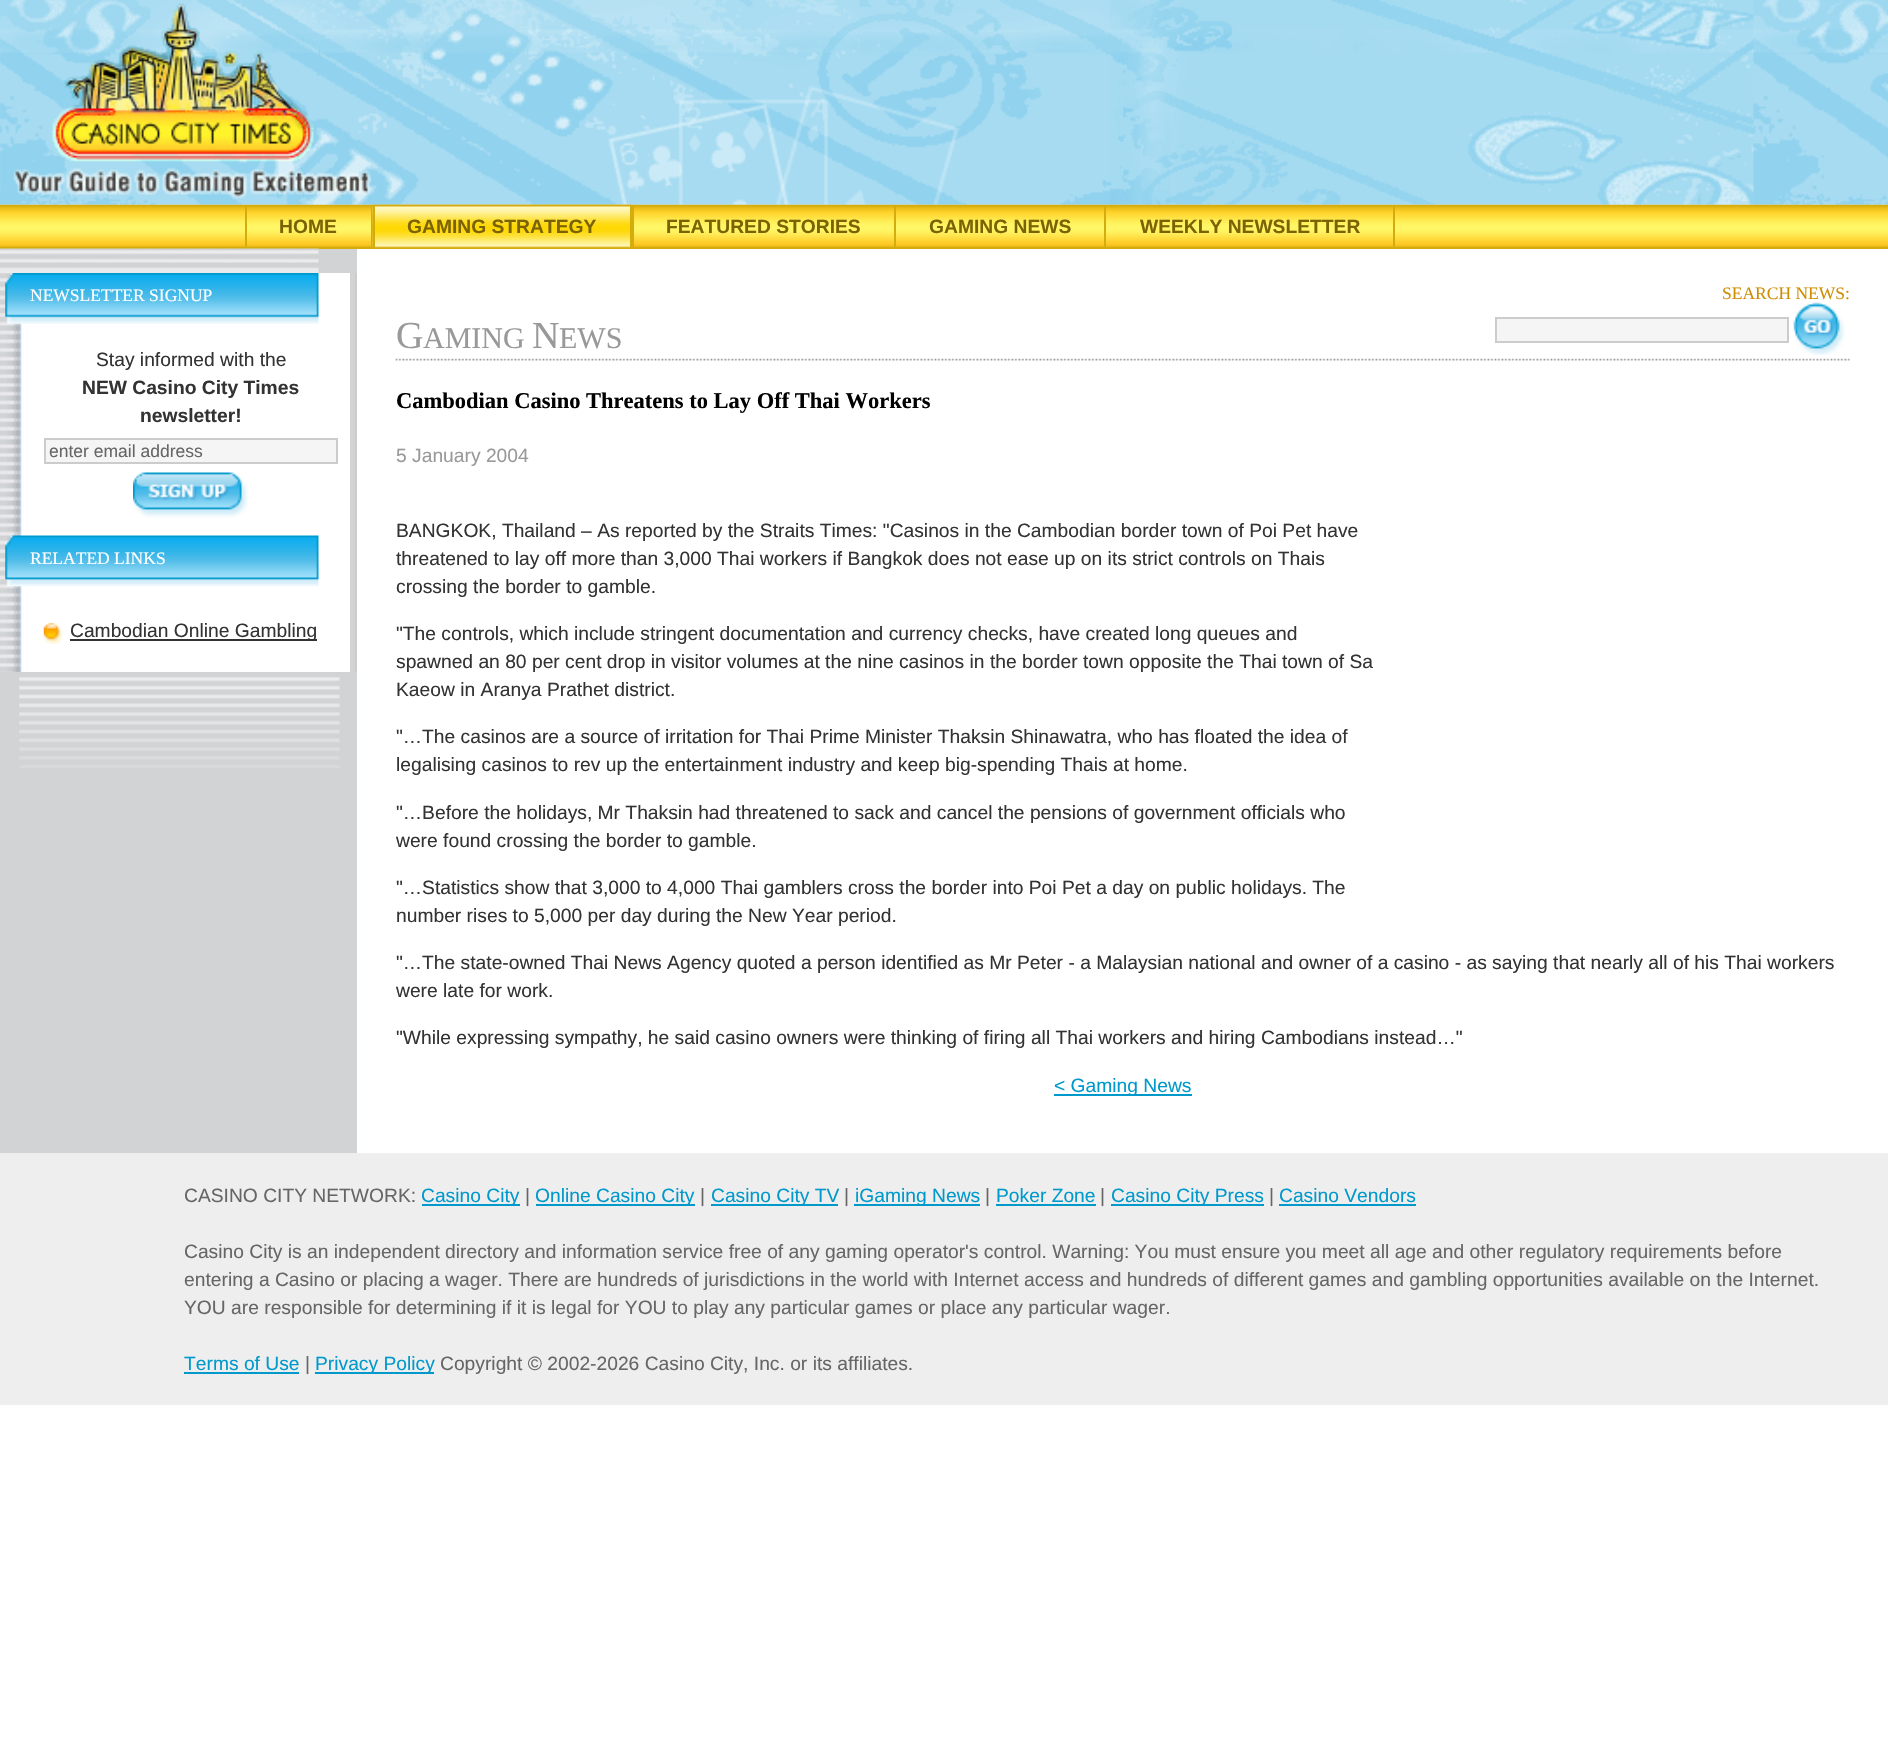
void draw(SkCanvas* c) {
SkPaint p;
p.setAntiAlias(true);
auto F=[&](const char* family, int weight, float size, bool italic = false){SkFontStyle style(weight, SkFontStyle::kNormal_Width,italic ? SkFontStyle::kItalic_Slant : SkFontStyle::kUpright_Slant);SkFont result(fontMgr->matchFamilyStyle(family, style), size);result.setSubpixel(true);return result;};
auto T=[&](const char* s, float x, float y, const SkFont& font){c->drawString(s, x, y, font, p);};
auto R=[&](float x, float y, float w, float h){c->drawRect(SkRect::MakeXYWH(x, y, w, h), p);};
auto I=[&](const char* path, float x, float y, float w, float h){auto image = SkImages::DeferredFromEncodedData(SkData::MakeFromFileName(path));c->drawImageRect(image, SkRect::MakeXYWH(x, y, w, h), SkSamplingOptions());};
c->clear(0xffffffff);
I("1.png",0,0,1888,205);
I("2.png",13,3,358,196);
p.setColor(0xffd5ac0d);
R(0,247,1888,2);
I("3.png",0,204,1888,43);
R(371,205,2,44);
R(245,205,2,44);
auto f1 = F("Liberation Sans",700,19.25);
p.setColor(0xff7b6304);
T("HOME",279,233,f1);
I("4.png",372,204,260,44);
p.setColor(0xffd5ac0d);
R(630,205,4,44);
R(373,205,2,44);
p.setColor(0xff7b6304);
T("GAMING STRATEGY",407,233,f1);
p.setColor(0xffd5ac0d);
R(894,205,2,44);
p.setColor(0xff7b6304);
T("FEATURED STORIES",666,233,f1);
p.setColor(0xffd5ac0d);
R(1104,205,2,44);
p.setColor(0xff7b6304);
T("GAMING NEWS",929,233,f1);
p.setColor(0xffd5ac0d);
R(1393,205,2,44);
p.setColor(0xff7b6304);
T("WEEKLY NEWSLETTER",1140,233,f1);
p.setColor(0xffd1d3d4);
R(0,249,357,904);
I("5.png",0,248,319,25);
I("6.png",19,677,321,91);
I("7.png",0,273,350,399);
p.setColor(0xffcccccc);
R(355,273,2,399);
I("8.png",5,273,314,51);
auto f2 = F("Liberation Serif",400,17.5);
p.setColor(0xffffffff);
T("NEWSLETTER SIGNUP",30,301,f2);
auto f3 = F("Liberation Sans",400,19.25);
p.setColor(0xff333333);
T("Stay informed with the",96,366,f3);
T("NEW Casino City Times",82,394,f1);
T("newsletter!",140,422,f1);
p.setColor(0xfff5f5f5);
c->drawRect(SkRect::MakeXYWH(45,439,292,24),p);
p.setStroke(true);
p.setStrokeWidth(2);
p.setColor(0xffcccccc);
c->drawRect(SkRect::MakeXYWH(45,439,292,24),p);
auto f4 = F("Liberation Sans",400,17.5);
p.setStroke(false);
p.setColor(0xff666666);
T("enter email address",49,457,f4);
I("9.png",133,472,115,46);
I("10.png",5,535,314,52);
p.setColor(0xffffffff);
T("RELATED LINKS",30,564,f2);
I("11.png",43,623,20,21);
p.setColor(0xff333333);
R(70,639,247,2);
T("Cambodian Online Gambling",70,637,f3);
p.setColor(0xffce8e04);
T("SEARCH NEWS:",1722,299,f2);
p.setColor(0xfff5f5f5);
c->drawRect(SkRect::MakeXYWH(1496,318,292,24),p);
p.setStroke(true);
p.setColor(0xffcccccc);
c->drawRect(SkRect::MakeXYWH(1496,318,292,24),p);
I("12.png",1793,302,52,53);
auto f5 = F("Liberation Serif",400,38);
p.setStroke(false);
p.setColor(0xff999999);
T("G",396,348,f5);
auto f6 = F("Liberation Serif",400,30);
T("AMING",423,348,f6);
T("N",532,348,f5);
T("EWS",559,348,f6);
I("13.png",395,358,1455,3);
auto f7 = F("Liberation Serif",700,22.5);
p.setColor(0xff000000);
T("Cambodian Casino Threatens to Lay Off Thai Workers",396,408,f7);
p.setColor(0xff999999);
T("5 January 2004",396,462,f3);
p.setColor(0xff333333);
T("BANGKOK, Thailand – As reported by the Straits Times: \"Casinos in the Cambodian border town of Poi Pet have",396,537,f3);
T("threatened to lay off more than 3,000 Thai workers if Bangkok does not ease up on its strict controls on Thais",396,565,f3);
T("crossing the border to gamble.",396,593,f3);
T("\"The controls, which include stringent documentation and currency checks, have created long queues and",396,640,f3);
T("spawned an 80 per cent drop in visitor volumes at the nine casinos in the border town opposite the Thai town of Sa",396,668,f3);
T("Kaeow in Aranya Prathet district.",396,696,f3);
T("\"…The casinos are a source of irritation for Thai Prime Minister Thaksin Shinawatra, who has floated the idea of",396,743,f3);
T("legalising casinos to rev up the entertainment industry and keep big-spending Thais at home.",396,771,f3);
T("\"…Before the holidays, Mr Thaksin had threatened to sack and cancel the pensions of government officials who",396,819,f3);
T("were found crossing the border to gamble.",396,847,f3);
T("\"…Statistics show that 3,000 to 4,000 Thai gamblers cross the border into Poi Pet a day on public holidays. The",396,894,f3);
T("number rises to 5,000 per day during the New Year period.",396,922,f3);
T("\"…The state-owned Thai News Agency quoted a person identified as Mr Peter - a Malaysian national and owner of a casino - as saying that nearly all of his Thai workers",396,969,f3);
T("were late for work.",396,997,f3);
T("\"While expressing sympathy, he said casino owners were thinking of firing all Thai workers and hiring Cambodians instead…\"",396,1044,f3);
p.setColor(0xff0099cc);
R(1054,1094,138,2);
T("< Gaming News",1054,1092,f3);
p.setColor(0xffeeeeee);
R(0,1153,1888,252);
p.setColor(0xff666666);
T("CASINO CITY NETWORK:",184,1202,f3);
p.setColor(0xff0099cc);
R(422,1204,98,2);
T("Casino City",421,1202,f3);
p.setColor(0xff666666);
T("|",525,1202,f3);
p.setColor(0xff0099cc);
R(536,1204,159,2);
T("Online Casino City",535,1202,f3);
p.setColor(0xff666666);
T("|",700,1202,f3);
p.setColor(0xff0099cc);
R(711,1204,127,2);
T("Casino City TV",711,1202,f3);
p.setColor(0xff666666);
T("|",844,1202,f3);
p.setColor(0xff0099cc);
R(854,1204,126,2);
T("iGaming News",855,1202,f3);
p.setColor(0xff666666);
T("|",985,1202,f3);
p.setColor(0xff0099cc);
T("Poker Zone",996,1202,f3);
R(996,1204,100,2);
p.setColor(0xff666666);
T("|",1100,1202,f3);
p.setColor(0xff0099cc);
R(1111,1204,153,2);
T("Casino City Press",1111,1202,f3);
p.setColor(0xff666666);
T("|",1269,1202,f3);
p.setColor(0xff0099cc);
T("Casino Vendors",1279,1202,f3);
R(1279,1204,137,2);
p.setColor(0xff666666);
T("Casino City is an independent directory and information service free of any gaming operator's control. Warning: You must ensure you meet all age and other regulatory requirements before",184,1258,f3);
T("entering a Casino or placing a wager. There are hundreds of jurisdictions in the world with Internet access and hundreds of different games and gambling opportunities available on the Internet.",184,1286,f3);
T("YOU are responsible for determining if it is legal for YOU to play any particular games or place any particular wager.",184,1314,f3);
p.setColor(0xff0099cc);
T("Terms of Use",184,1370,f3);
R(184,1372,115,2);
p.setColor(0xff666666);
T("|",305,1370,f3);
p.setColor(0xff0099cc);
R(315,1372,119,2);
T("Privacy Policy",315,1370,f3);
p.setColor(0xff666666);
T("Copyright © 2002-2026 Casino City, Inc. or its affiliates.",440,1370,f3);
}
